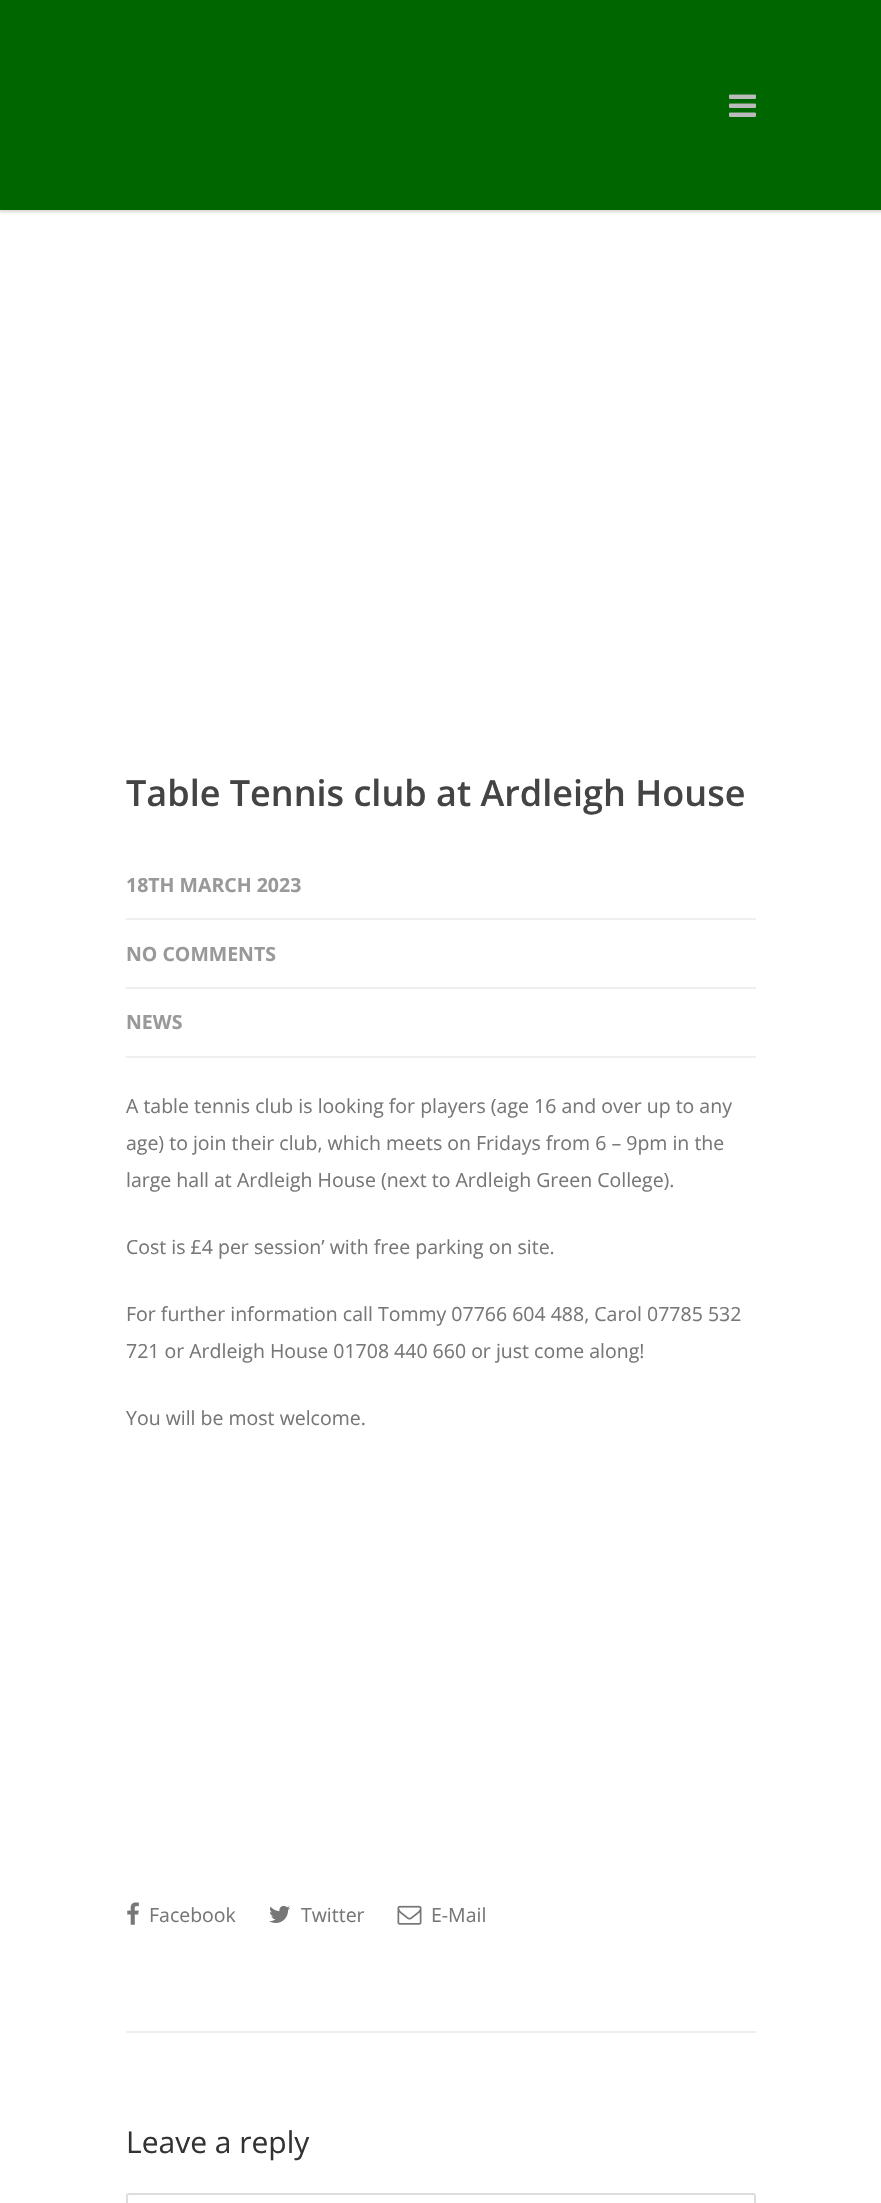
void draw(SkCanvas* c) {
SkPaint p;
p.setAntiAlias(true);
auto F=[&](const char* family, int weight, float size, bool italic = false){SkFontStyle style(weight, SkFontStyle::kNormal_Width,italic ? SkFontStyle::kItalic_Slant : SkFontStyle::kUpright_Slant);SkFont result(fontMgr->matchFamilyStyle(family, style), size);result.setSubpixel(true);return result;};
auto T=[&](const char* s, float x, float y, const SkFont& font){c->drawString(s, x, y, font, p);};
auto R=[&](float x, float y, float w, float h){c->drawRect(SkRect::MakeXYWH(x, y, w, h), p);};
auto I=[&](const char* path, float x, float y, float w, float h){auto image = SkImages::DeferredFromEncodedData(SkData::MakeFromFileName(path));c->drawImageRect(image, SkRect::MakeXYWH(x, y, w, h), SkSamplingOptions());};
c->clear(0xffffffff);
p.setColor(0x29000000);
p.setMaskFilter(SkMaskFilter::MakeBlur(kNormal_SkBlurStyle, 1.5));
c->drawRect(SkRect::MakeXYWH(-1,-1,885,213),p);
p.setMaskFilter(nullptr);
p.setColor(0xff006600);
R(0,0,881,210);
I("1.png",729,94,27,23);
auto f1 = F("Open Sans",600,36);
p.setColor(0xff444444);
T("Table Tennis club at Ardleigh House",126,806,f1);
p.setColor(0xffefefef);
R(126,918,630,2);
auto f2 = F("Open Sans",700,19.5);
p.setColor(0xff999999);
T("18TH MARCH 2023",126,892,f2);
p.setColor(0xffefefef);
R(126,987,630,2);
p.setColor(0xff999999);
T("NO COMMENTS",126,961,f2);
p.setColor(0xffefefef);
R(126,1056,630,2);
p.setColor(0xff999999);
T("NEWS",126,1029,f2);
auto f3 = F("Open Sans",400,19.5);
p.setColor(0xff777777);
T("A table tennis club is looking for players (age 16 and over up to any",126,1113,f3);
T("age) to join their club, which meets on Fridays from 6 – 9pm in the",126,1150,f3);
T("large hall at Ardleigh House (next to Ardleigh Green College).",126,1187,f3);
T("Cost is £4 per session’ with free parking on site.",126,1254,f3);
T("For further information call Tommy 07766 604 488, Carol 07785 532",126,1321,f3);
T("721 or Ardleigh House 01708 440 660 or just come along!",126,1358,f3);
T("You will be most welcome.",126,1425,f3);
I("2.png",127,1902,12,23);
T("Facebook",149,1922,f3);
I("3.png",269,1905,21,18);
T("Twitter",301,1922,f3);
I("4.png",397,1905,25,20);
T("E-Mail",431,1922,f3);
p.setColor(0xffefefef);
R(126,2031,630,2);
auto f4 = F("Open Sans",400,30);
p.setColor(0xff333333);
T("Leave a reply",126,2153,f4);
p.setStroke(true);
p.setStrokeWidth(2);
p.setColor(0xffdddddd);
c->drawRoundRect(SkRect::MakeXYWH(127,2194,628,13),2,2,p);
}
